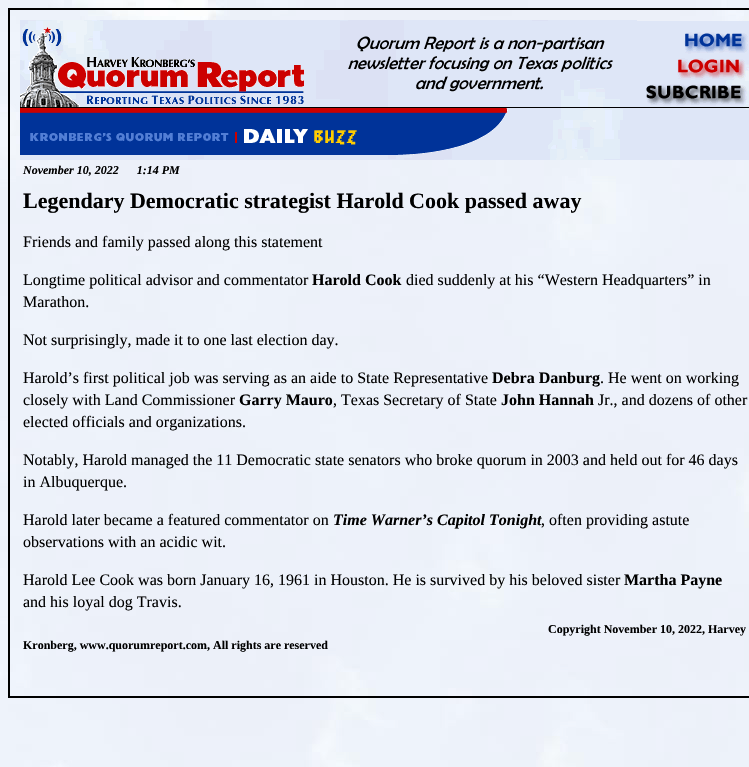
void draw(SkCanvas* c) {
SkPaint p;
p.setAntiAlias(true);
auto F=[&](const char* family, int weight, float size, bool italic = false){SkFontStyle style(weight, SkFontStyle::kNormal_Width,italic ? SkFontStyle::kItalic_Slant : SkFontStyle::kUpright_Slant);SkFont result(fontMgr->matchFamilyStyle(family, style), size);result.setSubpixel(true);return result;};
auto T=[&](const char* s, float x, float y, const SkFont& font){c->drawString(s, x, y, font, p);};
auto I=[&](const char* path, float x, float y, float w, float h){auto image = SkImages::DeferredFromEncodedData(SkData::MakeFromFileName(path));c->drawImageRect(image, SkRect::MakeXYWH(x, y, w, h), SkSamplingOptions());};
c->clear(0xffffffff);
I("1.png",0,0,749,767);
p.setStroke(true);
p.setStrokeWidth(1);
p.setColor(0xff000000);
c->drawRect(SkRect::MakeXYWH(8.5,8.5,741,689),p);
c->drawRect(SkRect::MakeXYWH(9.5,9.5,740,687),p);
I("2.png",20,20,617,86);
I("3.png",637,21,112,33);
I("4.png",637,54,112,28);
I("5.png",637,82,112,24);
I("6.png",20,106,729,54);
auto f1 = F("Liberation Serif",700,12,true);
p.setStroke(false);
T("November 10, 2022      1:14 PM",23,174,f1);
auto f2 = F("Liberation Serif",700,22);
T("Legendary Democratic strategist Harold Cook passed away",23,208,f2);
auto f3 = F("Liberation Serif",400,16);
T("Friends and family passed along this statement",23,247,f3);
T("Longtime political advisor and commentator",23,285,f3);
auto f4 = F("Liberation Serif",700,16);
T("Harold Cook",312,285,f4);
T("died suddenly at his “Western Headquarters” in",406,285,f3);
T("Marathon.",23,307,f3);
T("Not surprisingly, made it to one last election day.",23,345,f3);
T("Harold’s first political job was serving as an aide to State Representative",23,383,f3);
T("Debra Danburg",492,383,f4);
T(". He went on working",600,383,f3);
T("closely with Land Commissioner",23,405,f3);
T("Garry Mauro",239,405,f4);
T(", Texas Secretary of State",333,405,f3);
T("John Hannah",501,405,f4);
T("Jr., and dozens of other",598,405,f3);
T("elected officials and organizations.",23,427,f3);
T("Notably, Harold managed the 11 Democratic state senators who broke quorum in 2003 and held out for 46 days",23,465,f3);
T("in Albuquerque.",23,487,f3);
T("Harold later became a featured commentator on",23,525,f3);
auto f5 = F("Liberation Serif",700,16,true);
T("Time Warner’s Capitol Tonight",333,525,f5);
T(", often providing astute",541,525,f3);
T("observations with an acidic wit.",23,547,f3);
T("Harold Lee Cook was born January 16, 1961 in Houston. He is survived by his beloved sister",23,585,f3);
T("Martha Payne",624,585,f4);
T("and his loyal dog Travis.",23,607,f3);
auto f6 = F("Liberation Serif",700,12);
T("Copyright November 10, 2022, Harvey",548,633,f6);
T("Kronberg, www.quorumreport.com, All rights are reserved",23,649,f6);
}
